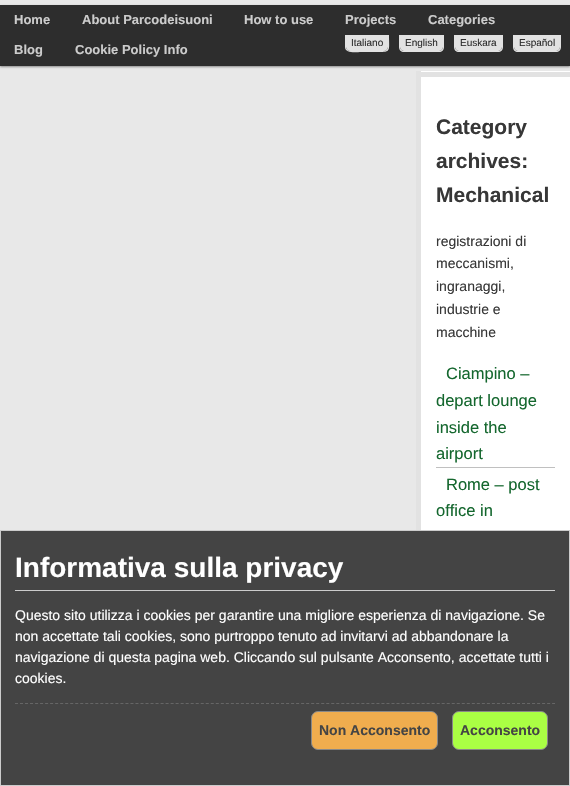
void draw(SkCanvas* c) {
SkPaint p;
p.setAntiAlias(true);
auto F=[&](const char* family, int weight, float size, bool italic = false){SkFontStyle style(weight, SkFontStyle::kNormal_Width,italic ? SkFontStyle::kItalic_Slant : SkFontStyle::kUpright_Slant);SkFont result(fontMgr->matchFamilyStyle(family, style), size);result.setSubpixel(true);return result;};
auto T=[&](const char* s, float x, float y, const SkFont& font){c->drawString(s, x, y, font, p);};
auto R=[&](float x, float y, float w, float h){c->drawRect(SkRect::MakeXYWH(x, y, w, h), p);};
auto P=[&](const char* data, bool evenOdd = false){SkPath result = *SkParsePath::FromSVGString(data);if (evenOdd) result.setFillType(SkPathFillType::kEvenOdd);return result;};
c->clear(0xffffffff);
p.setColor(0xffe8e8e8);
R(0,0,570,71);
p.setColor(0x66000000);
p.setMaskFilter(SkMaskFilter::MakeBlur(kNormal_SkBlurStyle, 1));
c->drawRect(SkRect::MakeXYWH(0,6,570,61),p);
p.setMaskFilter(nullptr);
p.setColor(0xff2d2d2d);
R(0,5,570,61);
auto f1 = F("Liberation Sans",700,13);
p.setColor(0xffcccccc);
T("Home",14,24,f1);
T("About Parcodeisuoni",82,24,f1);
T("How to use",244,24,f1);
T("Projects",345,24,f1);
T("Categories",428,24,f1);
T("Blog",14,54,f1);
T("Cookie Policy Info",75,54,f1);
p.setColor(0xffe2e2e2);
c->drawPath(P("M346 35h42v12c0 2-2 4-4 4h-34c-2 0-4-2-4-4z"),p);
c->drawPath(P("M345 35h44c0 18 3 17-16 17h-12c-4 0-16 2-16-5zm1 0h42v12c0 2-2 4-4 4h-34c-2 0-4-2-4-4z",true),p);
auto f2 = F("Liberation Sans",400,10);
p.setColor(0xff2d2d2d);
T("Italiano",351,46,f2);
p.setColor(0xffe2e2e2);
c->drawPath(P("M400 35h43v12c0 2-2 4-4 4h-35c-2 0-4-2-4-4z"),p);
c->drawPath(P("M399 35h45v12c0 3-2 5-5 5h-35c-3 0-5-2-5-5zm1 0h43v12c0 2-2 4-4 4h-35c-2 0-4-2-4-4z",true),p);
p.setColor(0xff2d2d2d);
T("English",405,46,f2);
p.setColor(0xffe2e2e2);
c->drawPath(P("M455 35h47v12c0 2-2 4-4 4h-39c-2 0-4-2-4-4z"),p);
c->drawPath(P("M454 35h49v12c0 3-2 5-5 5h-39c-3 0-5-2-5-5zm1 0h47v12c0 2-2 4-4 4h-39c-2 0-4-2-4-4z",true),p);
p.setColor(0xff2d2d2d);
T("Euskara",460,46,f2);
p.setColor(0xffe2e2e2);
c->drawPath(P("M514 35h46v12c0 2-2 4-4 4h-38c-2 0-4-2-4-4z"),p);
c->drawPath(P("M513 35h48v12c0 3-2 5-5 5h-38c-3 0-5-2-5-5zm1 0h46v12c0 2-2 4-4 4h-38c-2 0-4-2-4-4z",true),p);
p.setColor(0xff2d2d2d);
T("Español",519,46,f2);
p.setColor(0xffe8e8e8);
R(0,71,416,459);
p.setColor(0xffe2e2e2);
R(416,72,154,5);
R(416,71,5,459);
auto f3 = F("Liberation Sans",700,21);
p.setColor(0xff373737);
T("Category",436,134,f3);
T("archives:",436,168,f3);
T("Mechanical",436,202,f3);
auto f4 = F("Liberation Sans",400,14);
T("registrazioni di",436,246,f4);
T("meccanismi,",436,268,f4);
T("ingranaggi,",436,291,f4);
T("industrie e",436,314,f4);
T("macchine",436,337,f4);
p.setColor(0xffc0c0c0);
R(436,467,119,1);
auto f5 = F("Liberation Sans",400,16.5);
p.setColor(0xff14672e);
T("Ciampino –",446,379,f5);
T("depart lounge",436,406,f5);
T("inside the",436,433,f5);
T("airport",436,459,f5);
T("Rome – post",446,490,f5);
T("office in",436,516,f5);
p.setColor(0xff444444);
c->drawRect(SkRect::MakeXYWH(.5,530.5,569,255),p);
p.setStroke(true);
p.setStrokeWidth(1);
p.setColor(0xffcccccc);
c->drawRect(SkRect::MakeXYWH(.5,530.5,569,255),p);
p.setStroke(false);
R(15,590,540,1);
auto f6 = F("Liberation Sans",700,28);
p.setColor(0xffffffff);
T("Informativa sulla privacy",15,577,f6);
T("Questo sito utilizza i cookies per garantire una migliore esperienza di navigazione. Se",15,620,f4);
T("non accettate tali cookies, sono purtroppo tenuto ad invitarvi ad abbandonare la",15,641,f4);
T("navigazione di questa pagina web. Cliccando sul pulsante Acconsento, accettate tutti i",15,662,f4);
T("cookies.",15,683,f4);
p.setStroke(true);
p.setColor(0xff666666);
p.setPathEffect(SkDashPathEffect::Make({{3,2.02f}}, 0));
c->drawPath(P("M15 703.5h540"),p);
p.setPathEffect(nullptr);
p.setStroke(false);
p.setColor(0xfff0ad4e);
c->drawRoundRect(SkRect::MakeXYWH(311.5,711.5,126,38),6.5,6.5,p);
p.setStroke(true);
p.setColor(0xff888888);
c->drawRoundRect(SkRect::MakeXYWH(311.5,711.5,126,38),6.5,6.5,p);
auto f7 = F("Liberation Sans",700,14);
p.setStroke(false);
p.setColor(0xff444444);
T("Non Acconsento",319,735,f7);
p.setColor(0xffaaff44);
c->drawRoundRect(SkRect::MakeXYWH(452.5,711.5,95,38),6.5,6.5,p);
p.setStroke(true);
p.setColor(0xff888888);
c->drawRoundRect(SkRect::MakeXYWH(452.5,711.5,95,38),6.5,6.5,p);
p.setStroke(false);
p.setColor(0xff444444);
T("Acconsento",460,735,f7);
}
